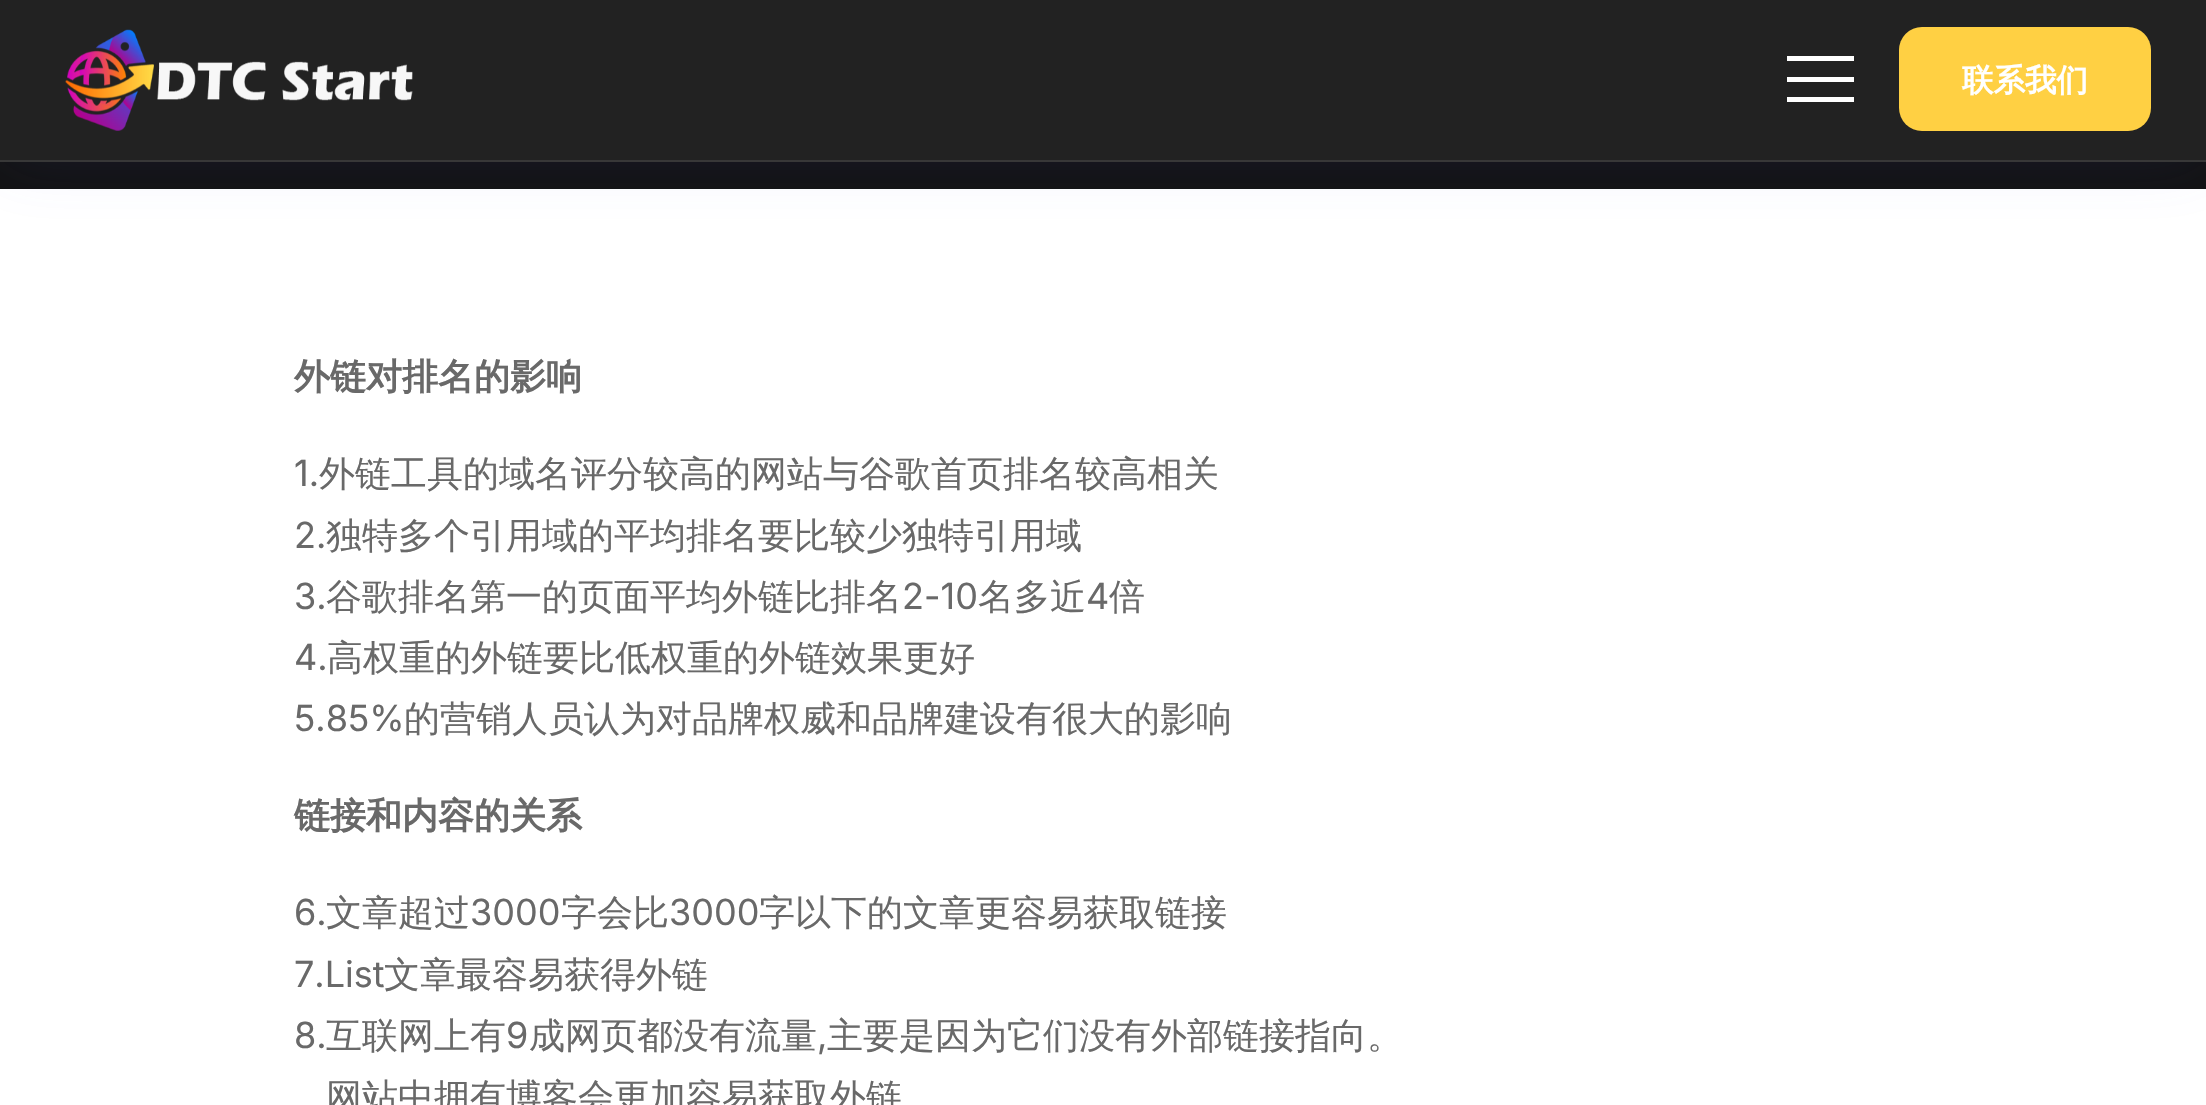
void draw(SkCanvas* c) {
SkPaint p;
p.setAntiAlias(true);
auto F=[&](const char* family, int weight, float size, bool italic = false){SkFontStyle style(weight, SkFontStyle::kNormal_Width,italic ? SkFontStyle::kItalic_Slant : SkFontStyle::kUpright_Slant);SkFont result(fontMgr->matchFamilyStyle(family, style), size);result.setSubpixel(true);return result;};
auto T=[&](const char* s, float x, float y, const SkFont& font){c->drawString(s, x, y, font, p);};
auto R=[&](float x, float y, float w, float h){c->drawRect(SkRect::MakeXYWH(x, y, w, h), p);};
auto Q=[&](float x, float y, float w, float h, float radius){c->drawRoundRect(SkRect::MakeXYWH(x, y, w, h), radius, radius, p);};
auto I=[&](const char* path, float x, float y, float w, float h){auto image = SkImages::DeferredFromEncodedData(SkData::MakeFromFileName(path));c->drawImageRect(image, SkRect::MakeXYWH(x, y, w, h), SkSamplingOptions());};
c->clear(0xffffffff);
p.setColor(0xff111111);
R(0,162,2206,27);
p.setColor(0x1a575ff5);
p.setMaskFilter(SkMaskFilter::MakeBlur(kNormal_SkBlurStyle, 34));
c->drawRect(SkRect::MakeXYWH(0,0,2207,162),p);
p.setMaskFilter(nullptr);
p.setColor(0xff222222);
R(0,0,2206,160);
p.setColor(0xff383838);
R(0,160,2206,2);
I("1.png",65,29,348,102);
p.setColor(0xffffffff);
R(1787,56,67,5);
R(1787,77,67,5);
R(1787,97,67,5);
p.setColor(0xffffd043);
Q(1899,27,252,104,23);
auto f1 = F("WenQuanYi Zen Hei",700,31.5);
p.setColor(0xffffffff);
T("联系我们",1962,91,f1);
auto f2 = F("WenQuanYi Zen Hei",700,36);
p.setColor(0xff696969);
T("外链对排名的影响",294,389,f2);
auto f3 = F("Inter",400,36);
T("1.",294,486,f3);
auto f4 = F("WenQuanYi Zen Hei",500,36);
T("外链工具的域名评分较高的网站与谷歌首页排名较高相关",319,486,f4);
T("2.",294,548,f3);
T("独特多个引用域的平均排名要比较少独特引用域",326,548,f4);
T("3.",294,609,f3);
T("谷歌排名第一的页面平均外链比排名",326,609,f4);
T("2-10",902,609,f3);
T("名多近",978,609,f4);
T("4",1086,609,f3);
T("倍",1109,609,f4);
T("4.",294,670,f3);
T("高权重的外链要比低权重的外链效果更好",327,670,f4);
T("5.85%",294,731,f3);
T("的营销人员认为对品牌权威和品牌建设有很大的影响",404,731,f4);
T("链接和内容的关系",294,828,f2);
T("6.",294,925,f3);
T("文章超过",326,925,f4);
T("3000",470,925,f3);
T("字会比",561,925,f4);
T("3000",669,925,f3);
T("字以下的文章更容易获取链接",759,925,f4);
T("7.List",294,987,f3);
T("文章最容易获得外链",384,987,f4);
T("8.",294,1048,f3);
T("互联网上有",326,1048,f4);
T("9",506,1048,f3);
T("成网页都没有流量",529,1048,f4);
T(",",817,1048,f3);
T("主要是因为它们没有外部链接指向。",827,1048,f4);
T("网站中拥有博客会更加容易获取外链",326,1109,f4);
}
